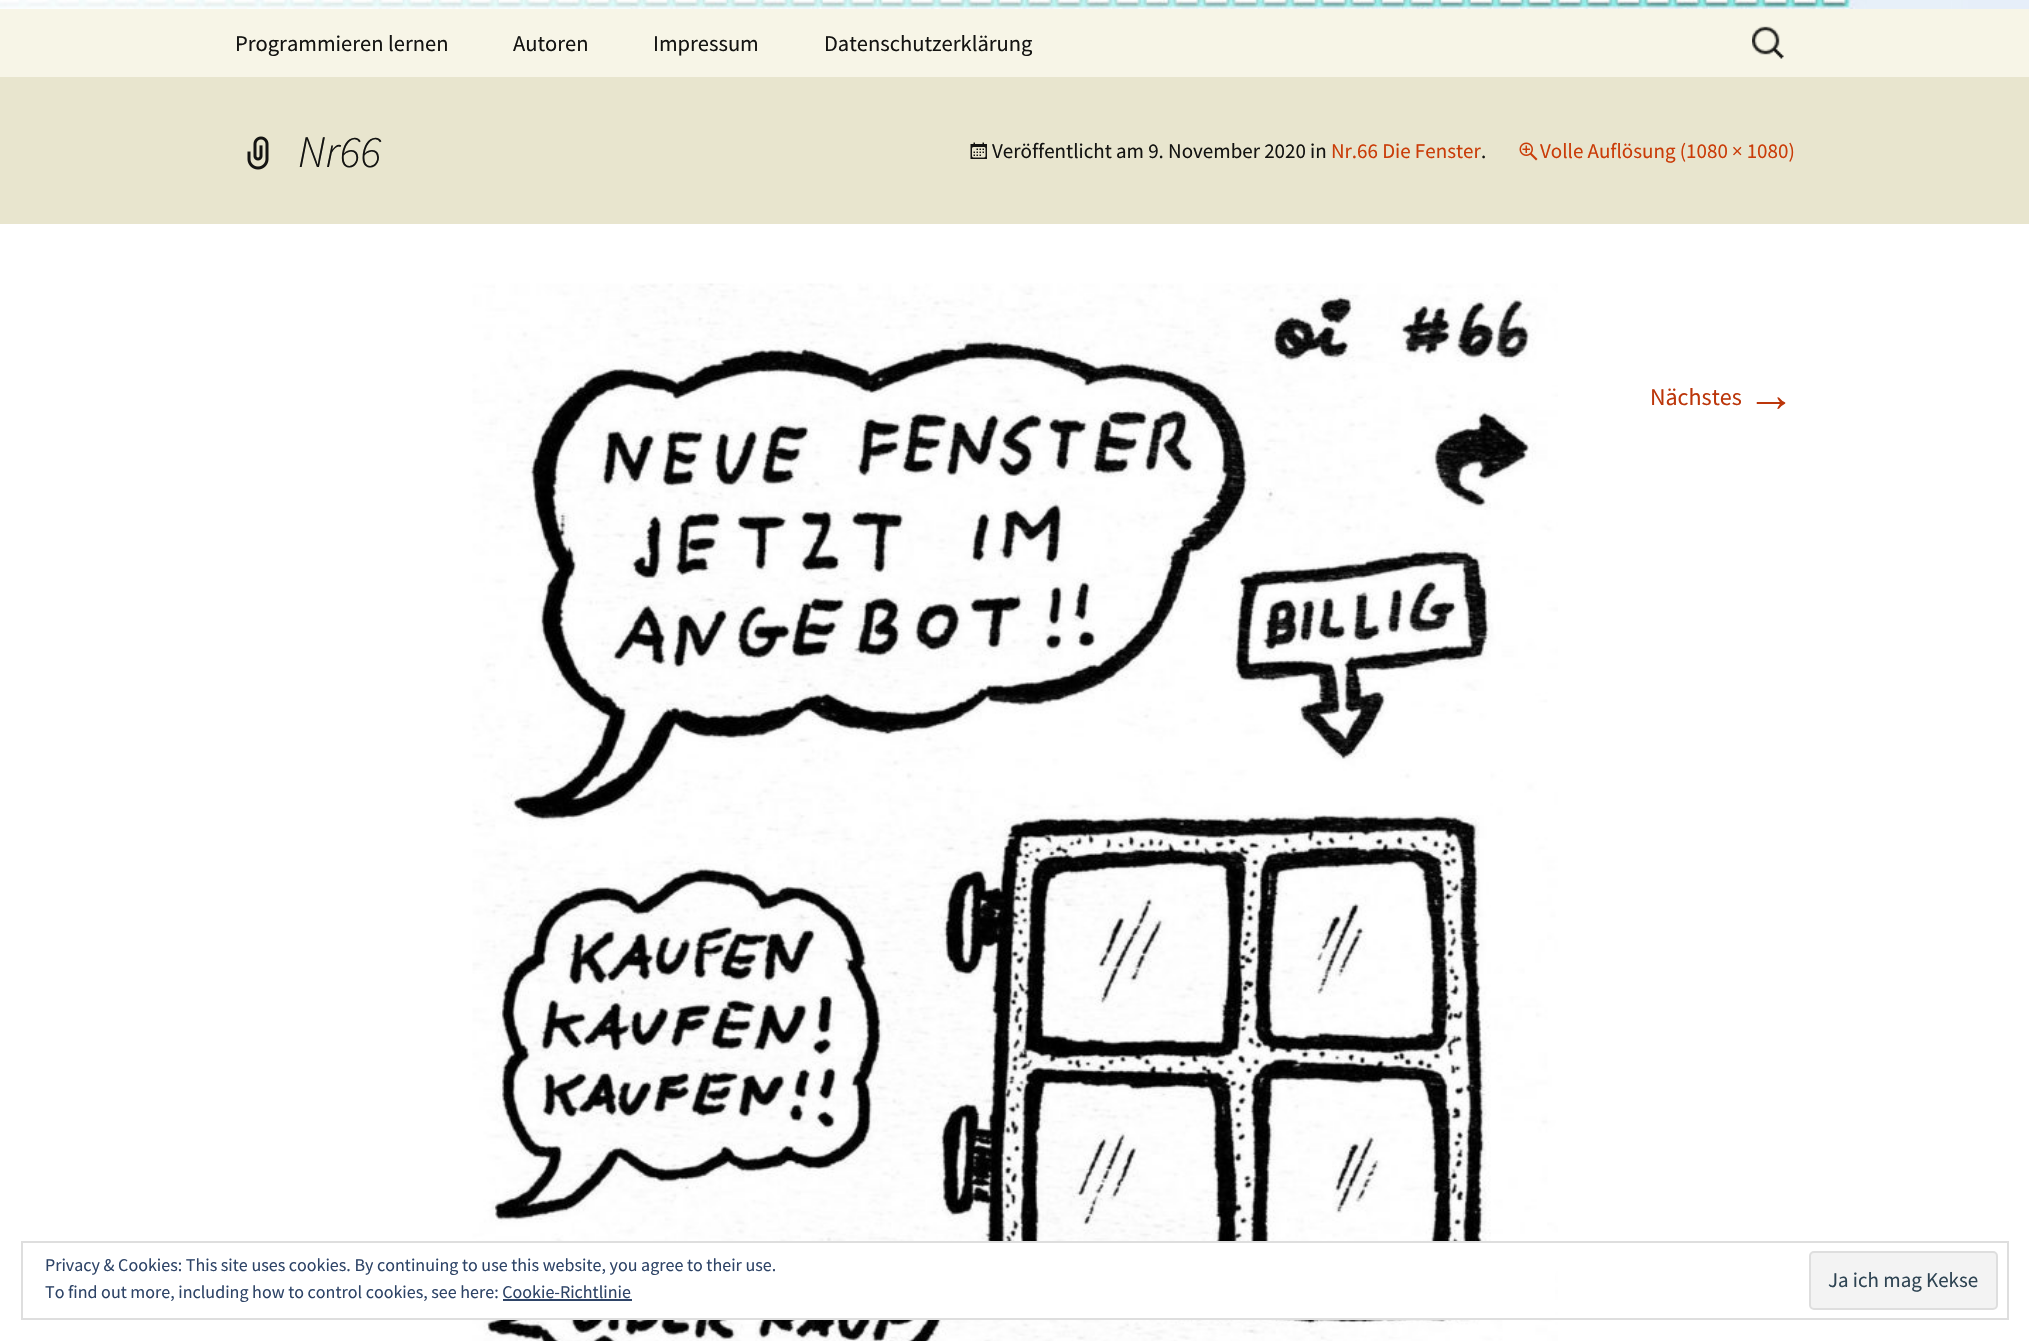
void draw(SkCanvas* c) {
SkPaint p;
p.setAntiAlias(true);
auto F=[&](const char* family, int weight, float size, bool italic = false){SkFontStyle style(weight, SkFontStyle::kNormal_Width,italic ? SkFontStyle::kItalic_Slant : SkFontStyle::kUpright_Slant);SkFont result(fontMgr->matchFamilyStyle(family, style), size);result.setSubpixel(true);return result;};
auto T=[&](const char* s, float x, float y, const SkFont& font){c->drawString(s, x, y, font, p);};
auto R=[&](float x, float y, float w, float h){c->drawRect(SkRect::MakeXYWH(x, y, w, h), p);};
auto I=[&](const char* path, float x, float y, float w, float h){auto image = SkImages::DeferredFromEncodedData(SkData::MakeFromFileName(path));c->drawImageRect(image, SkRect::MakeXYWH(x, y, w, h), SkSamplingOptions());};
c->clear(0xffffffff);
I("1.png",0,0,2029,9);
p.setColor(0xfff7f5e7);
R(0,9,2029,68);
auto f1 = F("Source Sans Pro",400,22.5);
p.setColor(0xff141412);
T("Programmieren lernen",235,51,f1);
T("Autoren",513,51,f1);
T("Impressum",653,51,f1);
T("Datenschutzerklärung",824,51,f1);
I("2.png",1752,26,32,33);
p.setColor(0xffe8e5ce);
R(0,77,2029,147);
I("3.png",247,136,22,34);
auto f2 = F("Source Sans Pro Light",300,45,true);
p.setColor(0xff141412);
T("Nr66",298,167,f2);
I("4.png",970,142,17,17);
auto f3 = F("Source Sans Pro",400,21);
T("Veröffentlicht am 9. November 2020 in",992,158,f3);
p.setColor(0xffca3c08);
T("Nr.66 Die Fenster",1331,158,f3);
p.setColor(0xff141412);
T(".",1481,158,f3);
I("5.png",1519,142,19,19);
p.setColor(0xffca3c08);
T("Volle Auflösung (1080 × 1080)",1540,158,f3);
I("6.png",472,283,1086,1058);
auto f4 = F("Source Sans Pro",400,24);
p.setColor(0xffbc360a);
T("Nächstes",1650,405,f4);
auto f5 = F("Liberation Sans",400,48);
T("→",1747,411,f5);
p.setColor(0xffffffff);
R(472,1243,1083,75);
p.setStroke(true);
p.setStrokeWidth(2);
p.setColor(0xffdedede);
c->drawRect(SkRect::MakeXYWH(22,1242,1986,77),p);
auto f6 = F("Source Sans Pro",400,18);
p.setStroke(false);
p.setColor(0xff2e4467);
T("Privacy & Cookies: This site uses cookies. By continuing to use this website, you agree to their use.",45,1271,f6);
T("To find out more, including how to control cookies, see here: Cookie-Richtlinie",45,1298,f6);
p.setColor(0xfff3f3f3);
c->drawRoundRect(SkRect::MakeXYWH(1810,1252,187,57),4,4,p);
p.setStroke(true);
p.setColor(0xffdedede);
c->drawRoundRect(SkRect::MakeXYWH(1810,1252,187,57),4,4,p);
p.setStroke(false);
p.setColor(0xff2e4453);
T("Ja ich mag Kekse",1828,1287,f3);
p.setColor(0xff2e4467);
R(503,1299,129,2);
}
